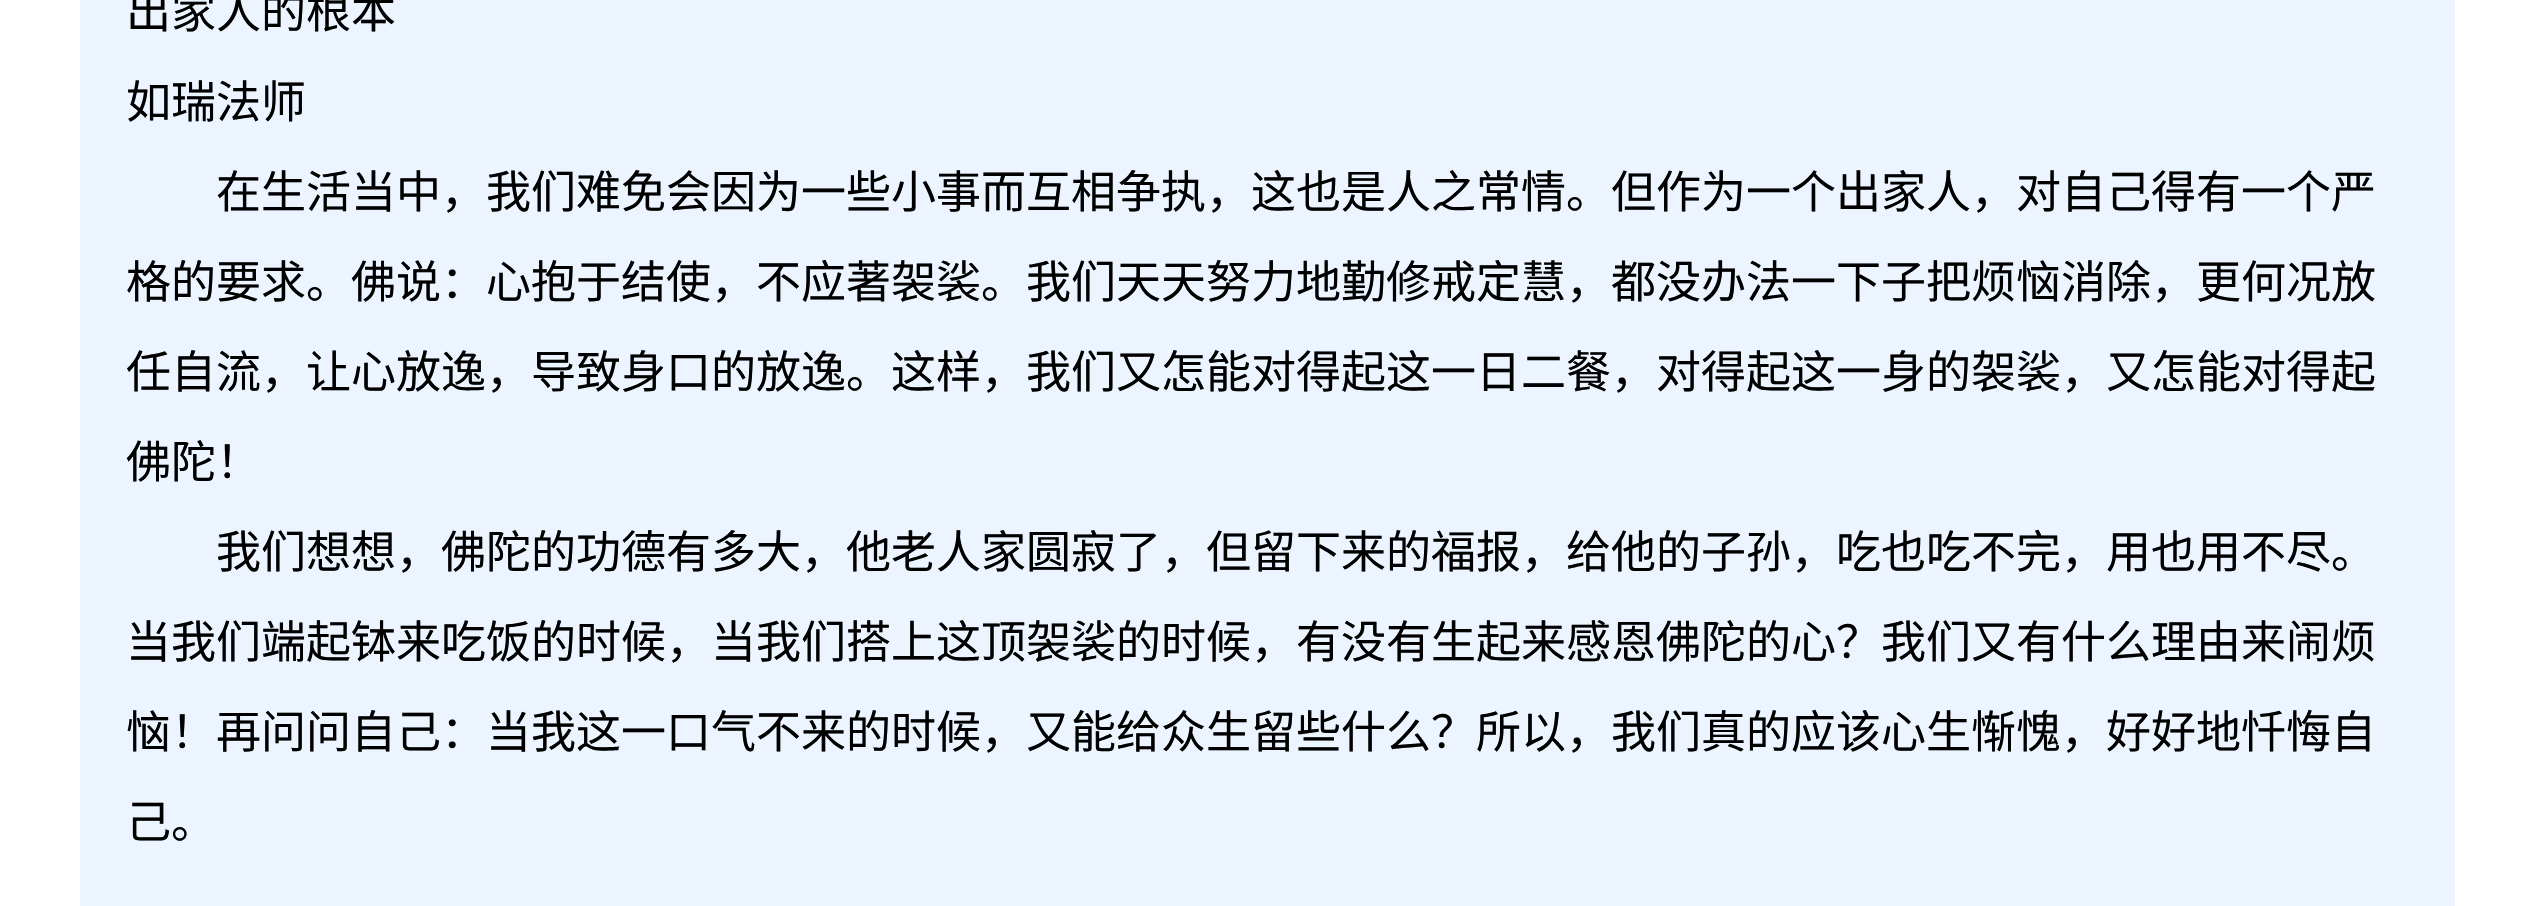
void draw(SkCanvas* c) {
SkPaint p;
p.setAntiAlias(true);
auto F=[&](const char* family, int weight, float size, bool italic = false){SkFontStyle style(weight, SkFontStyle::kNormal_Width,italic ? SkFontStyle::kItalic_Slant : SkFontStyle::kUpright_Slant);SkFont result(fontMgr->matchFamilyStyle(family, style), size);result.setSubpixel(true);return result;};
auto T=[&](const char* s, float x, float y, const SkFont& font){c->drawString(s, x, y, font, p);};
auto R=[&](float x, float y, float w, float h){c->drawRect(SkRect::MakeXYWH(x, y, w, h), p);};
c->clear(0xffffffff);
p.setColor(0xffecf5ff);
R(80,0,2375,906);
auto f1 = F("Noto Sans CJK SC",400,45);
p.setColor(0xff000000);
T("出家人的根本",126,28,f1);
T("如瑞法师",126,118,f1);
T("在生活当中，我们难免会因为一些小事而互相争执，这也是人之常情。但作为一个出家人，对自己得有一个严",216,208,f1);
T("格的要求。佛说：心抱于结使，不应著袈裟。我们天天努力地勤修戒定慧，都没办法一下子把烦恼消除，更何况放",126,298,f1);
T("任自流，让心放逸，导致身口的放逸。这样，我们又怎能对得起这一日二餐，对得起这一身的袈裟，又怎能对得起",126,388,f1);
T("佛陀！",126,478,f1);
T("我们想想，佛陀的功德有多大，他老人家圆寂了，但留下来的福报，给他的子孙，吃也吃不完，用也用不尽。",216,568,f1);
T("当我们端起钵来吃饭的时候，当我们搭上这顶袈裟的时候，有没有生起来感恩佛陀的心？我们又有什么理由来闹烦",126,658,f1);
T("恼！再问问自己：当我这一口气不来的时候，又能给众生留些什么？所以，我们真的应该心生惭愧，好好地忏悔自",126,748,f1);
T("己。",126,838,f1);
}
